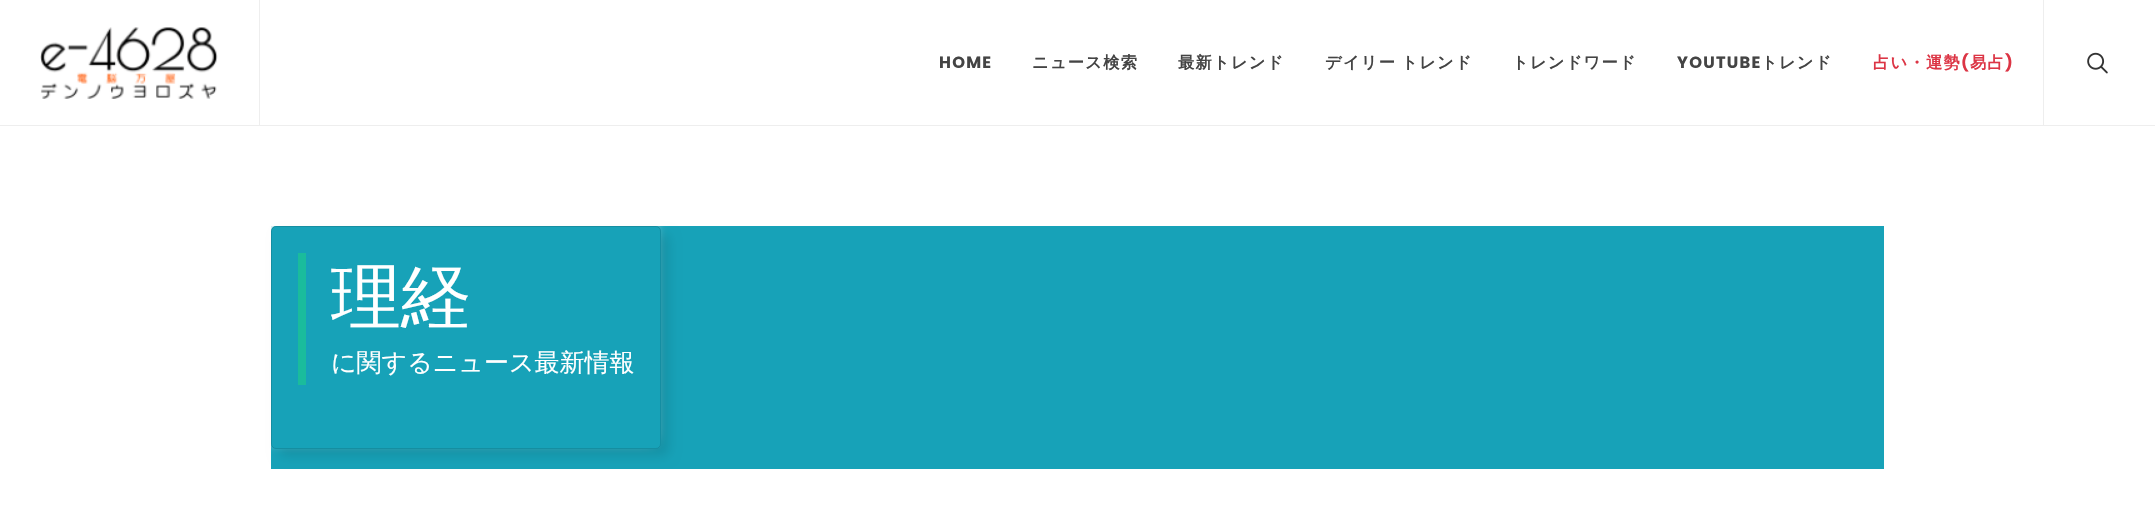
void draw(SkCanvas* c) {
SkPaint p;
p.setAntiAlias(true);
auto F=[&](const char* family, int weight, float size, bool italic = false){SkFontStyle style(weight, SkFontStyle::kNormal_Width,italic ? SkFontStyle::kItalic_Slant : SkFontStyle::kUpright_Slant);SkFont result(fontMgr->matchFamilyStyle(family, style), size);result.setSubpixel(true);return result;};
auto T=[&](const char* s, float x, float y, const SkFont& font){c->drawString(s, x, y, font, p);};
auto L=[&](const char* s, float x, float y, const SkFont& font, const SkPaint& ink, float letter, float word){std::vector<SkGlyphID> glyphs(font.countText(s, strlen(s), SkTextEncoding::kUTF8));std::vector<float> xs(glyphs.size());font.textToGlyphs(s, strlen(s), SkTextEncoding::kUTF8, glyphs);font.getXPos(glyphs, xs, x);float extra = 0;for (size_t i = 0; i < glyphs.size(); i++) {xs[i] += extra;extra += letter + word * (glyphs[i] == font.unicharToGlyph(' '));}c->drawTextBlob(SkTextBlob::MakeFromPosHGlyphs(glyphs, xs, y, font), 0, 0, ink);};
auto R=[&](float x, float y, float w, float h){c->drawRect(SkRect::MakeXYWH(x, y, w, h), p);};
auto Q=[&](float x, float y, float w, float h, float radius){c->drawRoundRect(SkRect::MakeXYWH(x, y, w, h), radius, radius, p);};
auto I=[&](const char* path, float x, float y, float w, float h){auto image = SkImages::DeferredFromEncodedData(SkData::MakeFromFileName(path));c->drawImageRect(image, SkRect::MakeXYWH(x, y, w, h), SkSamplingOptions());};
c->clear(0xffffffff);
p.setColor(0xffeeeeee);
R(0,125,2155,1);
R(259,0,1,125);
I("1.png",40,27,178,72);
R(2043,0,1,125);
auto f1 = F("Poppins",700,16.25);
p.setColor(0xff444444);
L("HOME",939,68,f1,p,1.25,0);
auto f2 = F("WenQuanYi Zen Hei",700,16.25);
L("ニュース検索",1032,68,f2,p,1.25,0);
L("最新トレンド",1178,68,f2,p,1.25,0);
L("デイリー トレンド",1325,68,f2,p,1.25,-1);
L("トレンドワード",1512,68,f2,p,1.25,0);
L("YOUTUBE",1677,68,f1,p,1.25,0);
L("トレンド",1761,68,f2,p,1.25,0);
p.setColor(0xffdc3545);
L("占い・運勢",1873,68,f2,p,1.25,0);
L("(",1961,68,f1,p,1.25,0);
L("易占",1970,68,f2,p,1.25,0);
L(")",2005,68,f1,p,1.25,0);
I("2.png",2087,52,21,22);
p.setColor(0xff17a2b8);
R(271,226,1613,243);
p.setColor(0xffffffff);
p.setMaskFilter(SkMaskFilter::MakeBlur(kNormal_SkBlurStyle, 6));
c->drawRoundRect(SkRect::MakeXYWH(264,219,390,222),5,5,p);
p.setMaskFilter(nullptr);
p.setColor(0x1a000000);
p.setMaskFilter(SkMaskFilter::MakeBlur(kNormal_SkBlurStyle, 6));
c->drawRoundRect(SkRect::MakeXYWH(279,234,390,222),5,5,p);
p.setMaskFilter(nullptr);
p.setColor(0xff17a2b8);
Q(271,226,390,223,5);
p.setStroke(true);
p.setStrokeWidth(1);
p.setColor(0x1f000000);
c->drawRoundRect(SkRect::MakeXYWH(271.5,226.5,389,222),4.5,4.5,p);
p.setStroke(false);
p.setColor(0xff1abc9c);
R(298,253,8,132);
auto f3 = F("WenQuanYi Zen Hei",500,70);
p.setColor(0xffffffff);
T("理経",331,321,f3);
auto f4 = F("WenQuanYi Zen Hei",500,25);
T("に関するニュース最新情報",331,371,f4);
}
